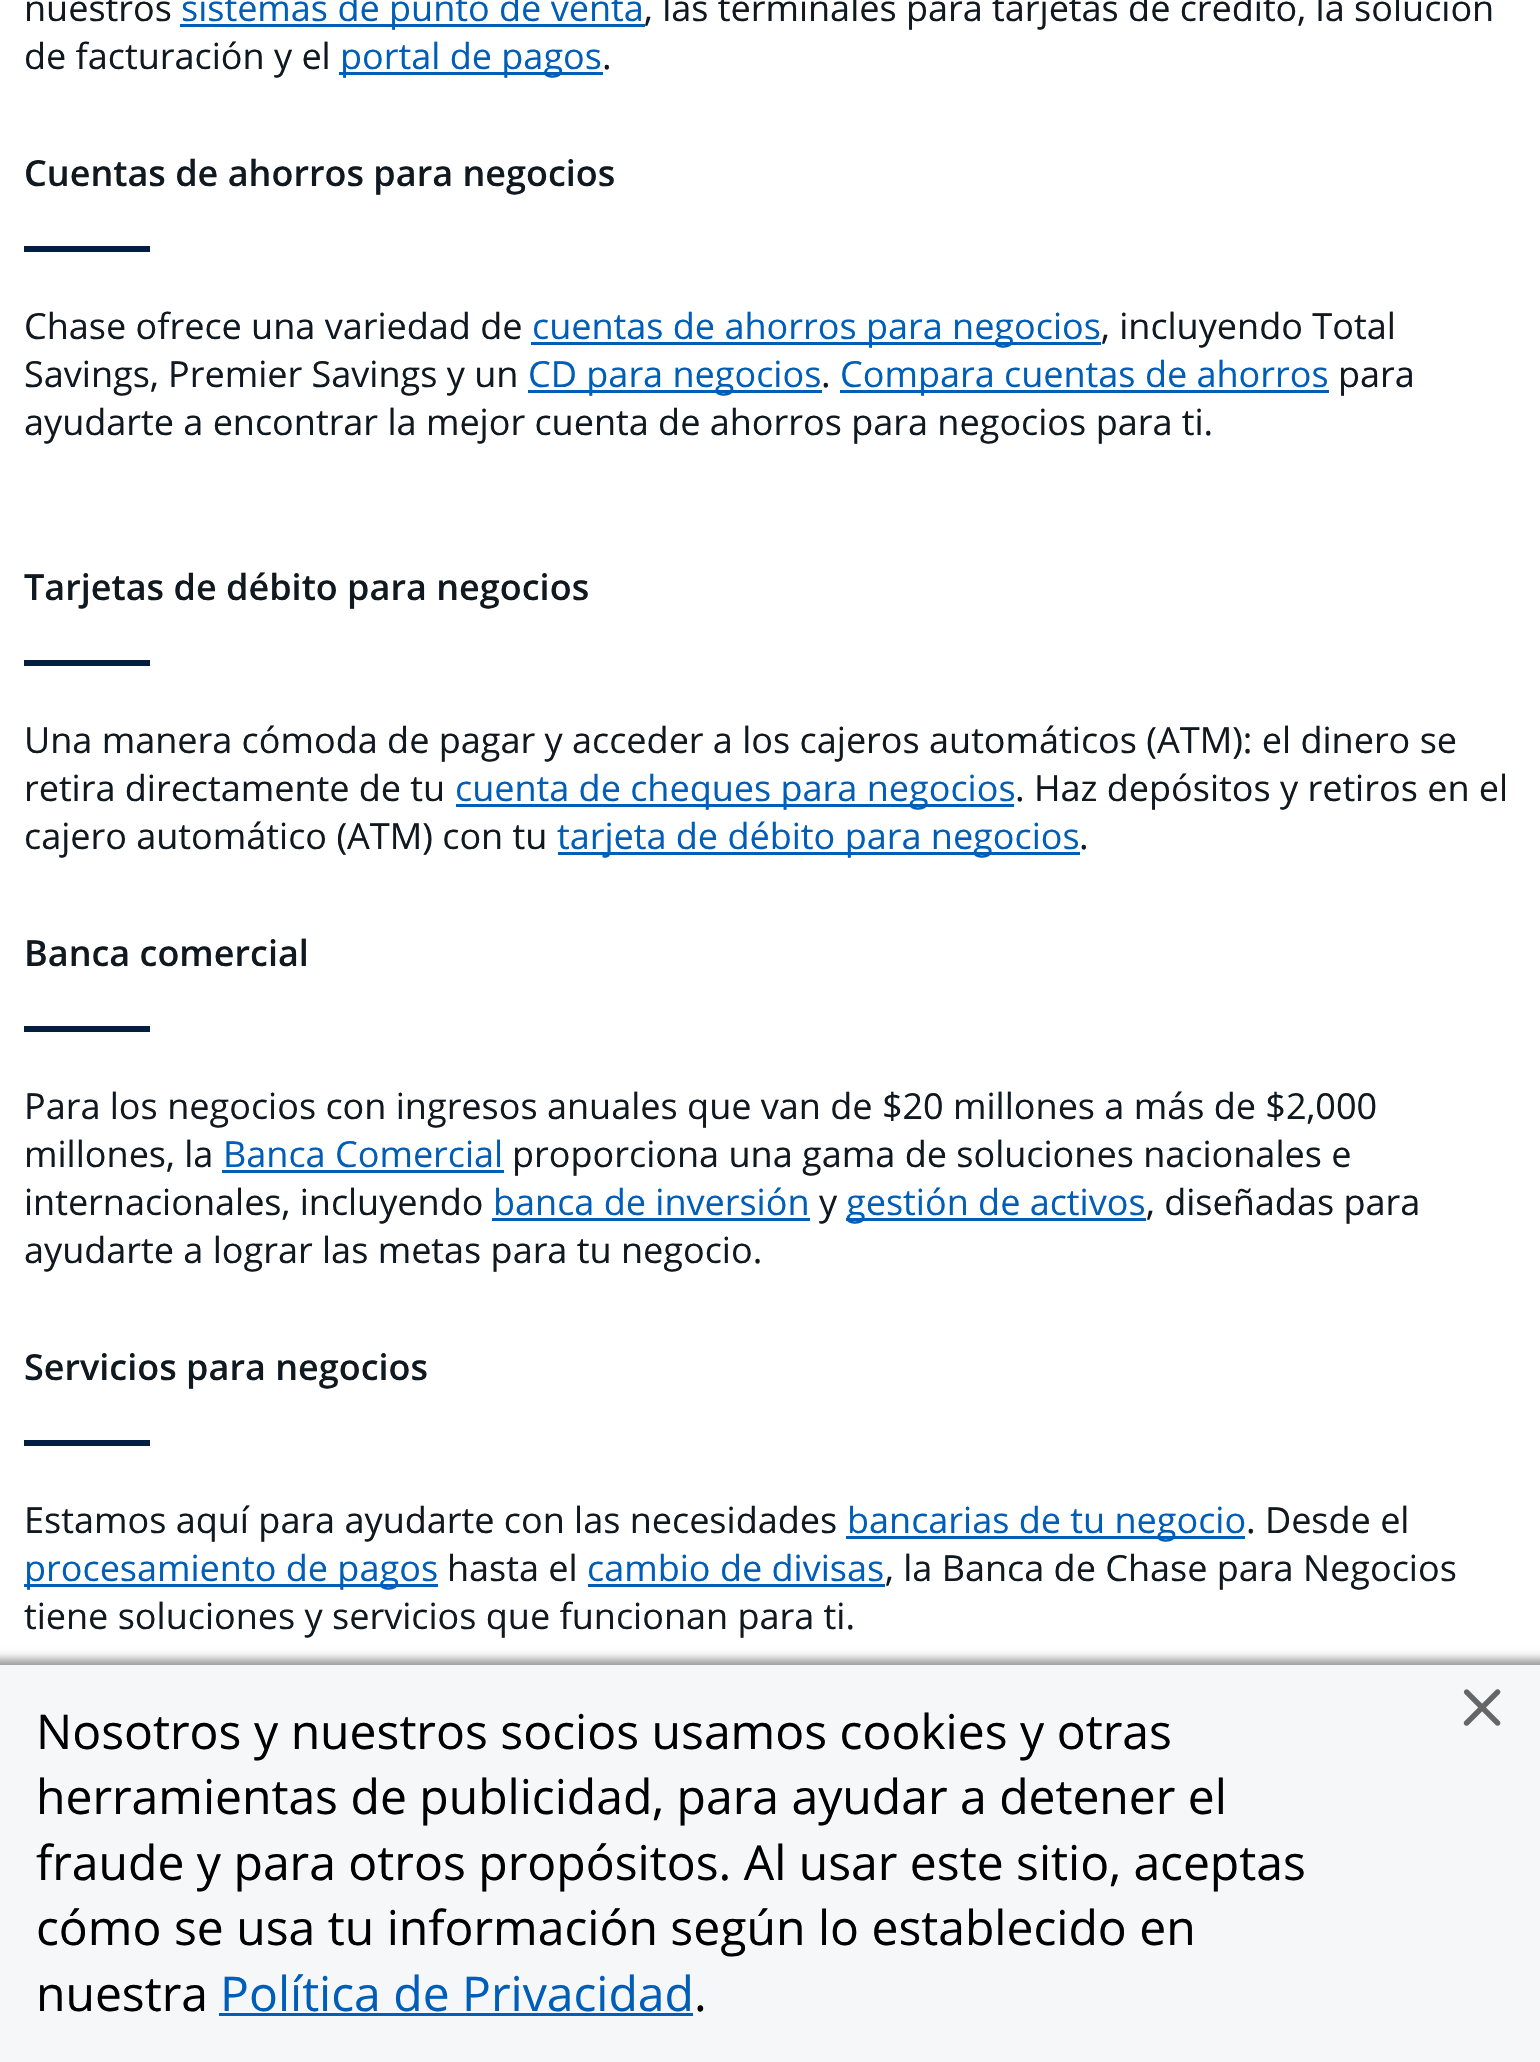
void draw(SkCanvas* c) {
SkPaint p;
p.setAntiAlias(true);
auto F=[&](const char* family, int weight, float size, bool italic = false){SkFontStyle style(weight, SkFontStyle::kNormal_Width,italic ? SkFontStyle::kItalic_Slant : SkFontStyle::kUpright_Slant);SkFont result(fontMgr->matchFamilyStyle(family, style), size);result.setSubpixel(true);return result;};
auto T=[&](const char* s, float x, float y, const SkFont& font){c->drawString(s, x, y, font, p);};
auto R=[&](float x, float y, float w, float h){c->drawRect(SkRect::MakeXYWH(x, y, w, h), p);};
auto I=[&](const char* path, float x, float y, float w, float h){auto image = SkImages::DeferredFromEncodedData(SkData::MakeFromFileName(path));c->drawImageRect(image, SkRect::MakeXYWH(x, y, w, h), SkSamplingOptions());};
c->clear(0xffffffff);
auto f1 = F("Open Sans",400,36);
p.setColor(0xff101820);
T("nuestros",24,21,f1);
p.setColor(0xff005eb8);
R(180,24,465,3);
T("sistemas de punto de venta",181,21,f1);
p.setColor(0xff101820);
T(", las terminales para tarjetas de crédito, la solución",644,21,f1);
T("de facturación y el",24,69,f1);
p.setColor(0xff005eb8);
R(339,72,264,3);
T("portal de pagos",340,69,f1);
p.setColor(0xff101820);
T(".",602,69,f1);
auto f2 = F("Open Sans",600,36);
T("Cuentas de ahorros para negocios",24,186,f2);
p.setColor(0xff041e42);
R(24,246,126,6);
p.setColor(0xff101820);
T("Chase ofrece una variedad de",24,339,f1);
p.setColor(0xff005eb8);
R(531,342,570,3);
T("cuentas de ahorros para negocios",532,339,f1);
p.setColor(0xff101820);
T(", incluyendo Total",1101,339,f1);
T("Savings, Premier Savings y un",24,387,f1);
p.setColor(0xff005eb8);
R(528,390,294,3);
T("CD para negocios",528,387,f1);
p.setColor(0xff101820);
T(".",821,387,f1);
p.setColor(0xff005eb8);
R(840,390,489,3);
T("Compara cuentas de ahorros",840,387,f1);
p.setColor(0xff101820);
T("para",1338,387,f1);
T("ayudarte a encontrar la mejor cuenta de ahorros para negocios para ti.",24,435,f1);
T("Tarjetas de débito para negocios",24,600,f2);
p.setColor(0xff041e42);
R(24,660,126,6);
p.setColor(0xff101820);
T("Una manera cómoda de pagar y acceder a los cajeros automáticos (ATM): el dinero se",24,753,f1);
T("retira directamente de tu",24,801,f1);
p.setColor(0xff005eb8);
R(456,804,558,3);
T("cuenta de cheques para negocios",455,801,f1);
p.setColor(0xff101820);
T(". Haz depósitos y retiros en el",1015,801,f1);
T("cajero automático (ATM) con tu",24,849,f1);
p.setColor(0xff005eb8);
R(558,852,522,3);
T("tarjeta de débito para negocios",557,849,f1);
p.setColor(0xff101820);
T(".",1079,849,f1);
T("Banca comercial",24,966,f2);
p.setColor(0xff041e42);
R(24,1026,126,6);
p.setColor(0xff101820);
T("Para los negocios con ingresos anuales que van de $20 millones a más de $2,000",24,1119,f1);
T("millones, la",24,1167,f1);
p.setColor(0xff005eb8);
T("Banca Comercial",223,1167,f1);
R(222,1170,282,3);
p.setColor(0xff101820);
T("proporciona una gama de soluciones nacionales e",512,1167,f1);
T("internacionales, incluyendo",24,1215,f1);
p.setColor(0xff005eb8);
T("banca de inversión",493,1215,f1);
R(492,1218,318,3);
p.setColor(0xff101820);
T("y",819,1215,f1);
p.setColor(0xff005eb8);
R(846,1218,300,3);
T("gestión de activos",846,1215,f1);
p.setColor(0xff101820);
T(", diseñadas para",1146,1215,f1);
T("ayudarte a lograr las metas para tu negocio.",24,1263,f1);
T("Servicios para negocios",24,1380,f2);
p.setColor(0xff041e42);
R(24,1440,126,6);
p.setColor(0xff101820);
T("Estamos aquí para ayudarte con las necesidades",24,1533,f1);
p.setColor(0xff005eb8);
R(846,1536,399,3);
T("bancarias de tu negocio",847,1533,f1);
p.setColor(0xff101820);
T(". Desde el",1246,1533,f1);
p.setColor(0xff005eb8);
R(24,1584,414,3);
T("procesamiento de pagos",24,1581,f1);
p.setColor(0xff101820);
T("hasta el",447,1581,f1);
p.setColor(0xff005eb8);
T("cambio de divisas",587,1581,f1);
R(588,1584,297,3);
p.setColor(0xff101820);
T(", la Banca de Chase para Negocios",885,1581,f1);
T("tiene soluciones y servicios que funcionan para ti.",24,1629,f1);
p.setColor(0x66000000);
p.setMaskFilter(SkMaskFilter::MakeBlur(kNormal_SkBlurStyle, 4.5));
c->drawRect(SkRect::MakeXYWH(-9,1659,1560,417),p);
p.setMaskFilter(nullptr);
p.setColor(0xfff5f7f8);
R(0,1665,1540,397);
I("1.png",1463,1689,38,37);
auto f3 = F("Open Sans",400,48);
p.setColor(0xff000000);
T("Nosotros y nuestros socios usamos cookies y otras",36,1749,f3);
T("herramientas de publicidad, para ayudar a detener el",36,1814,f3);
T("fraude y para otros propósitos. Al usar este sitio, aceptas",36,1880,f3);
T("cómo se usa tu información según lo establecido en",36,1945,f3);
T("nuestra",36,2011,f3);
p.setColor(0xff005eb8);
T("Política de Privacidad",220,2011,f3);
R(219,2013,474,3);
p.setColor(0xff000000);
T(".",694,2011,f3);
}
